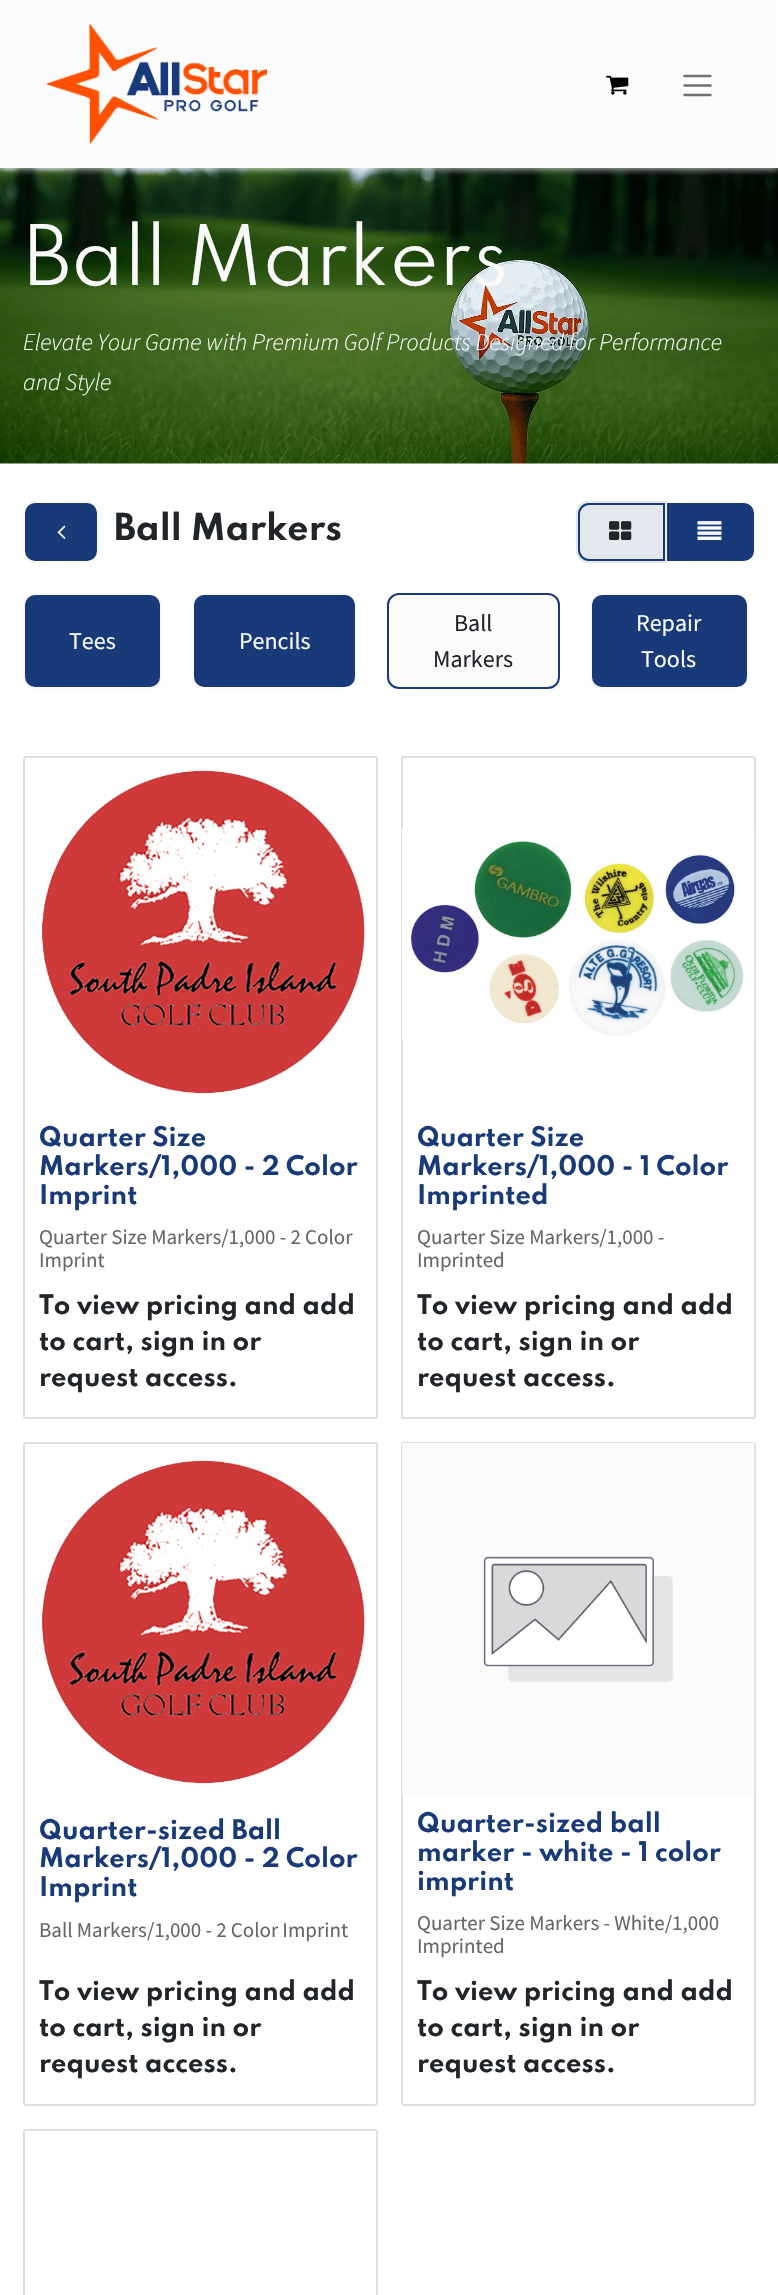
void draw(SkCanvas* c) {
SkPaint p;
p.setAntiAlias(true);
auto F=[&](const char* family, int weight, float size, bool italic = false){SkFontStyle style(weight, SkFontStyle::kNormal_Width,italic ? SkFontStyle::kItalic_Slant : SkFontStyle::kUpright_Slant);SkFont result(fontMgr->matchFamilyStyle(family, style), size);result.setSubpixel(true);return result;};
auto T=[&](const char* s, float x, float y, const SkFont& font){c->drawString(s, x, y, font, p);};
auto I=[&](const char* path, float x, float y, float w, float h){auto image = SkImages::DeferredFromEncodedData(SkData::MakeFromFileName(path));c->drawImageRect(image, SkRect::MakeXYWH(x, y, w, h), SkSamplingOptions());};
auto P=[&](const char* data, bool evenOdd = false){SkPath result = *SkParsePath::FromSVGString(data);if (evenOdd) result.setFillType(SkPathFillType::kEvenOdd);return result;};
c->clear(0xffffffff);
I("3.png",0,168,778,296);
p.setColor(0xfffcfcfd);
p.setMaskFilter(SkMaskFilter::MakeBlur(kNormal_SkBlurStyle, 4));
c->drawRect(SkRect::MakeXYWH(0,0,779,168),p);
p.setMaskFilter(nullptr);
I("1.png",46,24,221,120);
I("2.png",606,75,23,20);
p.setStroke(true);
p.setStrokeWidth(2.4);
p.setStrokeCap(SkPaint::kRound_Cap);
p.setColor(0xff717171);
c->drawPath(P("M684.5 76h26m-26 9.5h26m-26 9.5h26"),p);
auto f1 = F("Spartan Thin",400,74);
p.setStroke(false);
p.setColor(0xfffafafa);
T("Ball Markers",23,285,f1);
auto f2 = F("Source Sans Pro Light",300,24,true);
T("Elevate Your Game with Premium Golf Products Designed for Performance",23,350,f2);
T("and Style",23,390,f2);
p.setColor(0xff193a79);
c->drawRoundRect(SkRect::MakeXYWH(24,502,74,60),11,11,p);
p.setStroke(true);
p.setStrokeWidth(2);
p.setStrokeCap(SkPaint::kButt_Cap);
p.setColor(0xfffafafa);
c->drawRoundRect(SkRect::MakeXYWH(24,502,74,60),11,11,p);
I("4.png",57,525,9,14);
auto f3 = F("Spartan Thin",700,33);
p.setStroke(false);
p.setColor(0xff212529);
T("Ball Markers",114,540,f3);
p.setColor(0xff193a79);
c->drawPath(P("M666 502h78c6 0 11 5 11 11v38c0 6-5 11-11 11h-78z"),p);
p.setStroke(true);
p.setColor(0xfffafafa);
c->drawPath(P("M666 502h78c6 0 11 5 11 11v38c0 6-5 11-11 11h-78z"),p);
p.setStroke(false);
p.setColor(0xffe4e7ed);
c->drawPath(P("M588 501h78v62h-78c-6.5 0-12-5.5-12-12v-38c0-6.5 5.5-12 12-12z"),p);
p.setStroke(true);
p.setColor(0xff193a79);
c->drawPath(P("M589 504h75v56h-75c-5.5 0-10-4.5-10-10v-36c0-5.5 4.5-10 10-10z"),p);
I("5.png",609,521,23,19);
I("6.png",697,521,25,19);
p.setStroke(false);
c->drawRoundRect(SkRect::MakeXYWH(24,594,137,94),11,11,p);
p.setStroke(true);
p.setColor(0xfffafafa);
c->drawRoundRect(SkRect::MakeXYWH(24,594,137,94),11,11,p);
auto f4 = F("Source Sans Pro",400,24);
p.setStroke(false);
T("Tees",69,649,f4);
p.setColor(0xff193a79);
c->drawRoundRect(SkRect::MakeXYWH(193,594,163,94),11,11,p);
p.setStroke(true);
p.setColor(0xfffafafa);
c->drawRoundRect(SkRect::MakeXYWH(193,594,163,94),11,11,p);
p.setStroke(false);
T("Pencils",239,649,f4);
p.setColor(0xfffbfbfb);
c->drawRoundRect(SkRect::MakeXYWH(388,594,171,94),11,11,p);
p.setStroke(true);
p.setColor(0xff193a79);
c->drawRoundRect(SkRect::MakeXYWH(388,594,171,94),11,11,p);
p.setStroke(false);
p.setColor(0xff212529);
T("Ball",454,631,f4);
T("Markers",433,667,f4);
p.setColor(0xff193a79);
c->drawRoundRect(SkRect::MakeXYWH(591,594,157,94),11,11,p);
p.setStroke(true);
p.setColor(0xfffafafa);
c->drawRoundRect(SkRect::MakeXYWH(591,594,157,94),11,11,p);
p.setStroke(false);
T("Repair",636,631,f4);
T("Tools",641,667,f4);
p.setStroke(true);
p.setColor(0xffdededf);
c->drawRoundRect(SkRect::MakeXYWH(24,757,353,661),2,2,p);
I("7.png",41,770,324,324);
auto f5 = F("Spartan Thin",700,24);
p.setStroke(false);
p.setColor(0xff193a79);
T("Quarter Size",39,1146,f5);
T("Markers/1,000 - 2 Color",39,1175,f5);
T("Imprint",39,1204,f5);
auto f6 = F("Source Sans Pro",400,21);
p.setColor(0xff646669);
T("Quarter Size Markers/1,000 - 2 Color",39,1244,f6);
T("Imprint",39,1267,f6);
p.setColor(0xff212529);
T("To view pricing and add",39,1314,f5);
T("to cart, sign in or",39,1350,f5);
T("request access.",39,1386,f5);
p.setStroke(true);
p.setColor(0xffdededf);
c->drawRoundRect(SkRect::MakeXYWH(402,757,353,661),2,2,p);
I("8.png",402,828,353,212);
p.setStroke(false);
p.setColor(0xff193a79);
T("Quarter Size",417,1146,f5);
T("Markers/1,000 - 1 Color",417,1175,f5);
T("Imprinted",417,1204,f5);
p.setColor(0xff646669);
T("Quarter Size Markers/1,000 -",417,1244,f6);
T("Imprinted",417,1267,f6);
p.setColor(0xff212529);
T("To view pricing and add",417,1314,f5);
T("to cart, sign in or",417,1350,f5);
T("request access.",417,1386,f5);
p.setStroke(true);
p.setColor(0xffdededf);
c->drawRoundRect(SkRect::MakeXYWH(24,1443,353,662),2,2,p);
I("9.png",41,1460,324,324);
p.setStroke(false);
p.setColor(0xff193a79);
T("Quarter-sized Ball",39,1839,f5);
T("Markers/1,000 - 2 Color",39,1867,f5);
T("Imprint",39,1896,f5);
p.setColor(0xff646669);
T("Ball Markers/1,000 - 2 Color Imprint",39,1937,f6);
p.setColor(0xff212529);
T("To view pricing and add",39,2000,f5);
T("to cart, sign in or",39,2036,f5);
T("request access.",39,2072,f5);
p.setStroke(true);
p.setColor(0xffdededf);
c->drawRoundRect(SkRect::MakeXYWH(402,1443,353,662),2,2,p);
I("10.png",402,1443,353,353);
p.setStroke(false);
p.setColor(0xff193a79);
T("Quarter-sized ball",417,1832,f5);
T("marker - white - 1 color",417,1861,f5);
T("imprint",417,1890,f5);
p.setColor(0xff646669);
T("Quarter Size Markers - White/1,000",417,1930,f6);
T("Imprinted",417,1953,f6);
p.setColor(0xff212529);
T("To view pricing and add",417,2000,f5);
T("to cart, sign in or",417,2036,f5);
T("request access.",417,2072,f5);
p.setStroke(true);
p.setColor(0xffdededf);
c->drawRoundRect(SkRect::MakeXYWH(24,2130,353,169),2,2,p);
}
